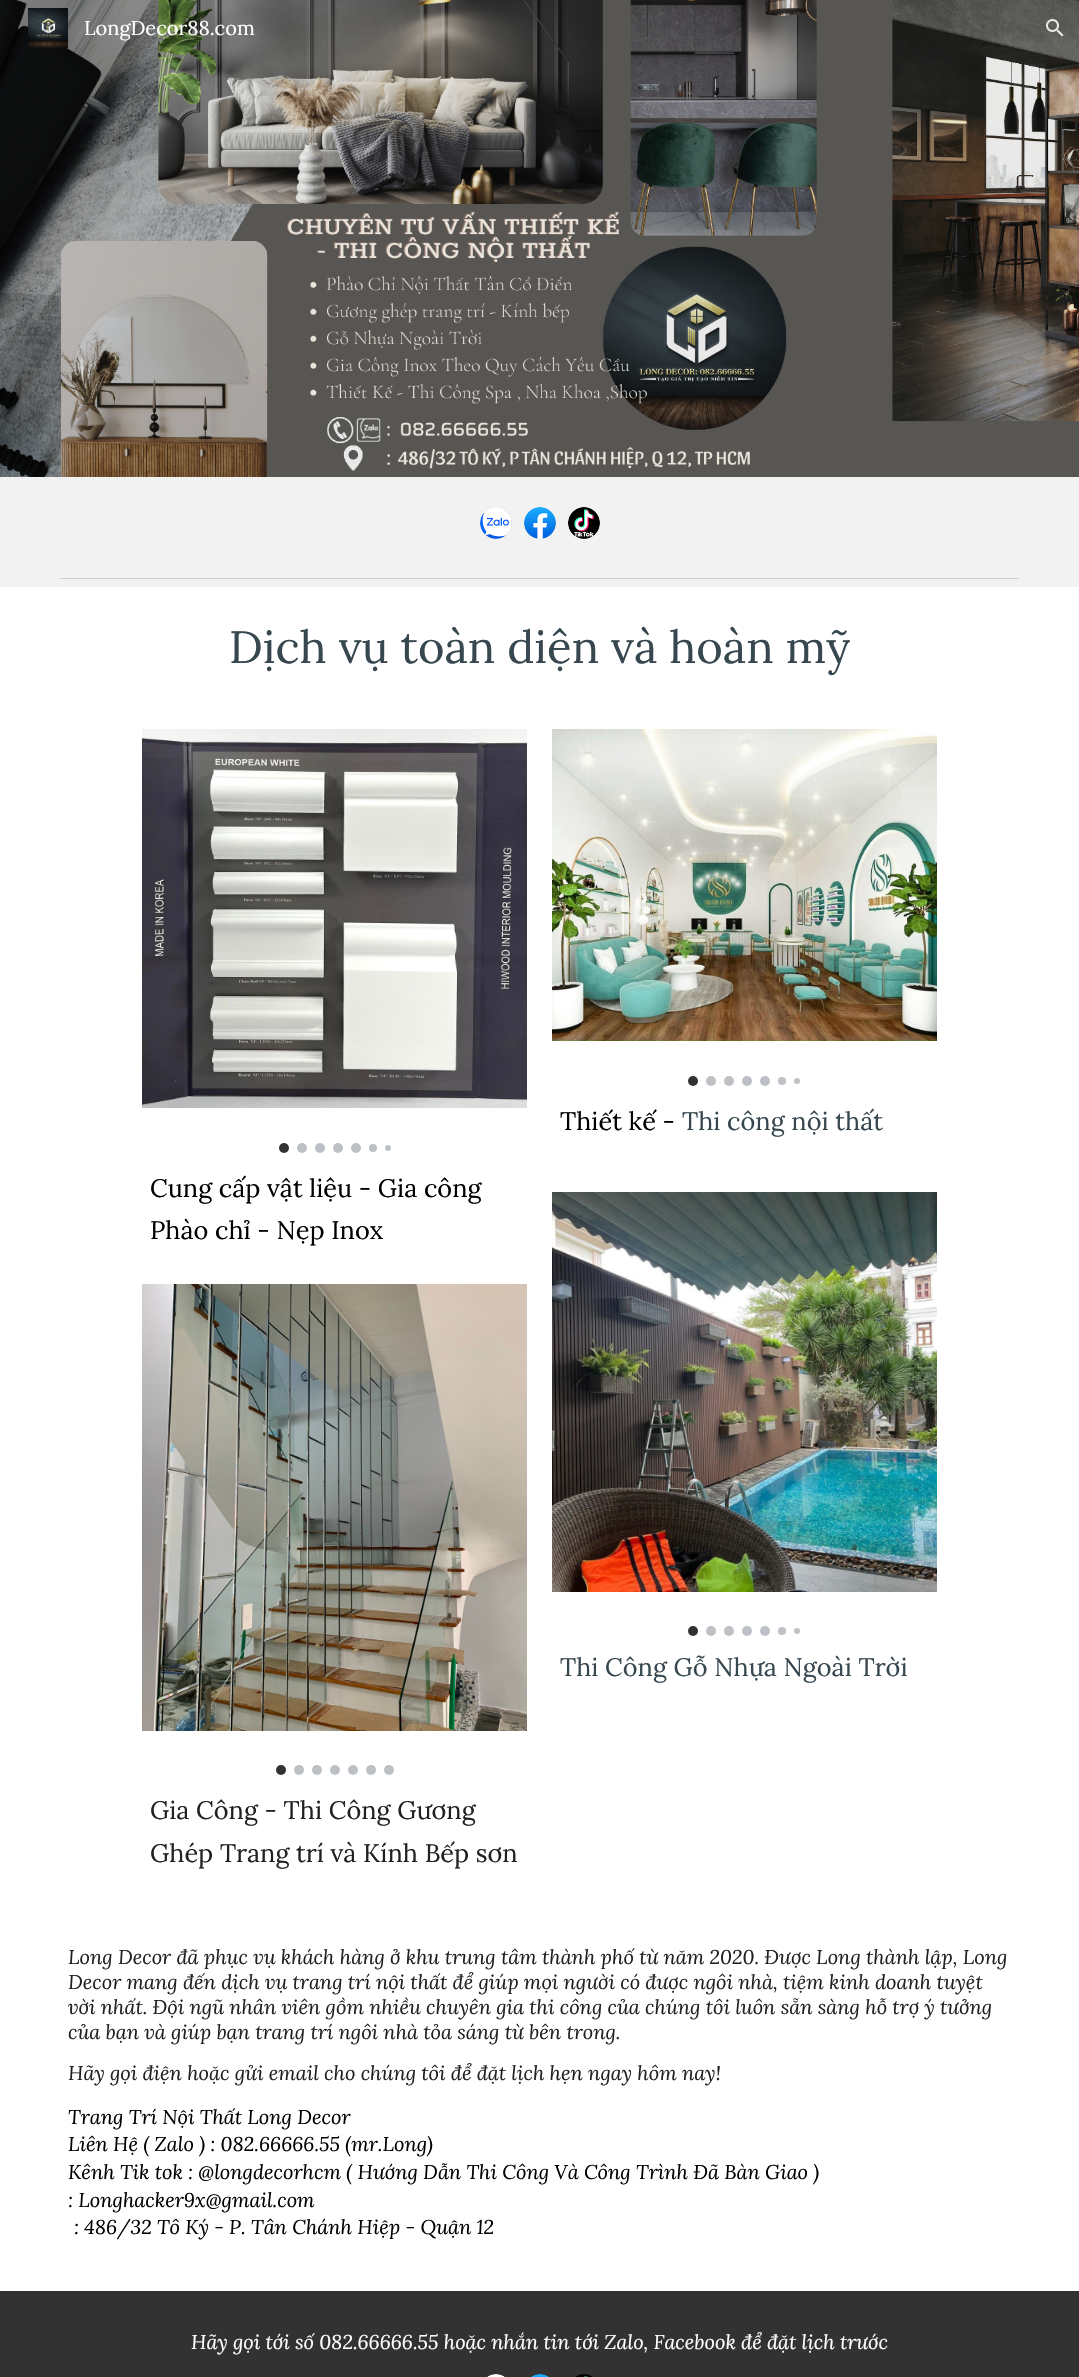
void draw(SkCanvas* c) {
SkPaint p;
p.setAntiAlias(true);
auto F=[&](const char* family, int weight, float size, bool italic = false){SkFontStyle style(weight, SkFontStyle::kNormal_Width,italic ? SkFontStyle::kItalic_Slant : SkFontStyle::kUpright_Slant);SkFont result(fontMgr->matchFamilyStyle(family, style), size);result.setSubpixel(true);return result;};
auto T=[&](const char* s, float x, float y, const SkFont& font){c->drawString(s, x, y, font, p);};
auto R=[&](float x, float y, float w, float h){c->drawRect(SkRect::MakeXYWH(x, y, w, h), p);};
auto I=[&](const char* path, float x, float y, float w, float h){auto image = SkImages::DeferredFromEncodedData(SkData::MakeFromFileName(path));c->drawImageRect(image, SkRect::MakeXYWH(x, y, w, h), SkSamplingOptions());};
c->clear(0xffffffff);
I("3.png",0,0,1079,477);
I("1.png",28,8,40,40);
auto f1 = F("Lora",400,20);
p.setColor(0xffffffff);
T("LongDecor88.com",84,35,f1);
I("2.png",1046,19,18,18);
p.setColor(0xfff2f2f2);
R(0,477,1079,110);
I("4.png",480,507,32,32);
I("5.png",524,507,32,32);
I("6.png",568,507,32,32);
p.setColor(0xffcecece);
R(60,578,959,1);
auto f2 = F("Lora",400,45.3);
p.setColor(0xff37474f);
T("Dịch vụ toàn diện và hoàn mỹ",229,663,f2);
I("7.png",142,729,385,379);
p.setColor(0xff323232);
c->drawCircle(284,1148,5,p);
p.setColor(0xffbdc1c6);
c->drawCircle(302,1148,5,p);
c->drawCircle(320,1148,5,p);
c->drawCircle(338,1148,5,p);
c->drawCircle(356,1148,5,p);
c->drawCircle(373,1148,4,p);
c->drawCircle(388,1148,3,p);
auto f3 = F("Lora",400,25.3);
p.setColor(0xff000000);
T("Cung cấp vật liệu - Gia công",150,1197,f3);
T("Phào chỉ - Nẹp Inox",150,1239,f3);
I("8.png",142,1284,385,447);
p.setColor(0xff323232);
c->drawCircle(281,1770,5,p);
p.setColor(0xffbdc1c6);
c->drawCircle(299,1770,5,p);
c->drawCircle(317,1770,5,p);
c->drawCircle(335,1770,5,p);
c->drawCircle(353,1770,5,p);
c->drawCircle(371,1770,5,p);
c->drawCircle(389,1770,5,p);
p.setColor(0xff212121);
T("Gia Công - Thi Công Gương",150,1819,f3);
T("Ghép Trang trí và Kính Bếp sơn",150,1862,f3);
I("9.png",552,729,385,312);
p.setColor(0xff323232);
c->drawCircle(693,1081,5,p);
p.setColor(0xffbdc1c6);
c->drawCircle(711,1081,5,p);
c->drawCircle(729,1081,5,p);
c->drawCircle(747,1081,5,p);
c->drawCircle(765,1081,5,p);
c->drawCircle(782,1081,4,p);
c->drawCircle(797,1081,3,p);
p.setColor(0xff000000);
T("Thiết kế -",560,1130,f3);
p.setColor(0xff37474f);
T("Thi công nội thất",682,1130,f3);
I("10.png",552,1192,385,400);
p.setColor(0xff323232);
c->drawCircle(693,1631,5,p);
p.setColor(0xffbdc1c6);
c->drawCircle(711,1631,5,p);
c->drawCircle(729,1631,5,p);
c->drawCircle(747,1631,5,p);
c->drawCircle(765,1631,5,p);
c->drawCircle(782,1631,4,p);
c->drawCircle(797,1631,3,p);
p.setColor(0xff37474f);
T("Thi Công Gỗ Nhựa Ngoài Trời",560,1676,f3);
auto f4 = F("Lora",400,20,true);
p.setColor(0xff212121);
T("Long Decor đã phục vụ khách hàng ở khu trung tâm thành phố từ năm 2020. Được Long thành lập, Long",68,1964,f4);
T("Decor mang đến dịch vụ trang trí nội thất để giúp mọi người có được ngôi nhà, tiệm kinh doanh tuyệt",68,1989,f4);
T("vời nhất. Đội ngũ nhân viên gồm nhiều chuyên gia thi công của chúng tôi luôn sẵn sàng hỗ trợ ý tưởng",68,2014,f4);
T("của bạn và giúp bạn trang trí ngôi nhà tỏa sáng từ bên trong.",68,2039,f4);
T("Hãy gọi điện hoặc gửi email cho chúng tôi để đặt lịch hẹn ngay hôm nay!",68,2080,f4);
p.setColor(0xff000000);
T("Trang Trí Nội Thất Long Decor",68,2124,f4);
T("Liên Hệ ( Zalo ) : 082.66666.55 (mr.Long)",68,2151,f4);
T("Kênh Tik tok : @longdecorhcm ( Hướng Dẫn Thi Công Và Công Trình Đã Bàn Giao )",68,2179,f4);
T(": Longhacker9x@gmail.com",68,2207,f4);
T(": 486/32 Tô Ký - P. Tân Chánh Hiệp - Quận 12",74,2234,f4);
p.setColor(0xff323232);
R(0,2291,1079,86);
p.setColor(0xffffffff);
T("Hãy gọi tới số 082.66666.55 hoặc nhắn tin tới Zalo, Facebook để đặt lịch trước",191,2349,f4);
I("11.png",487,2374,18,3);
I("12.png",531,2374,18,3);
I("13.png",575,2374,18,3);
}
